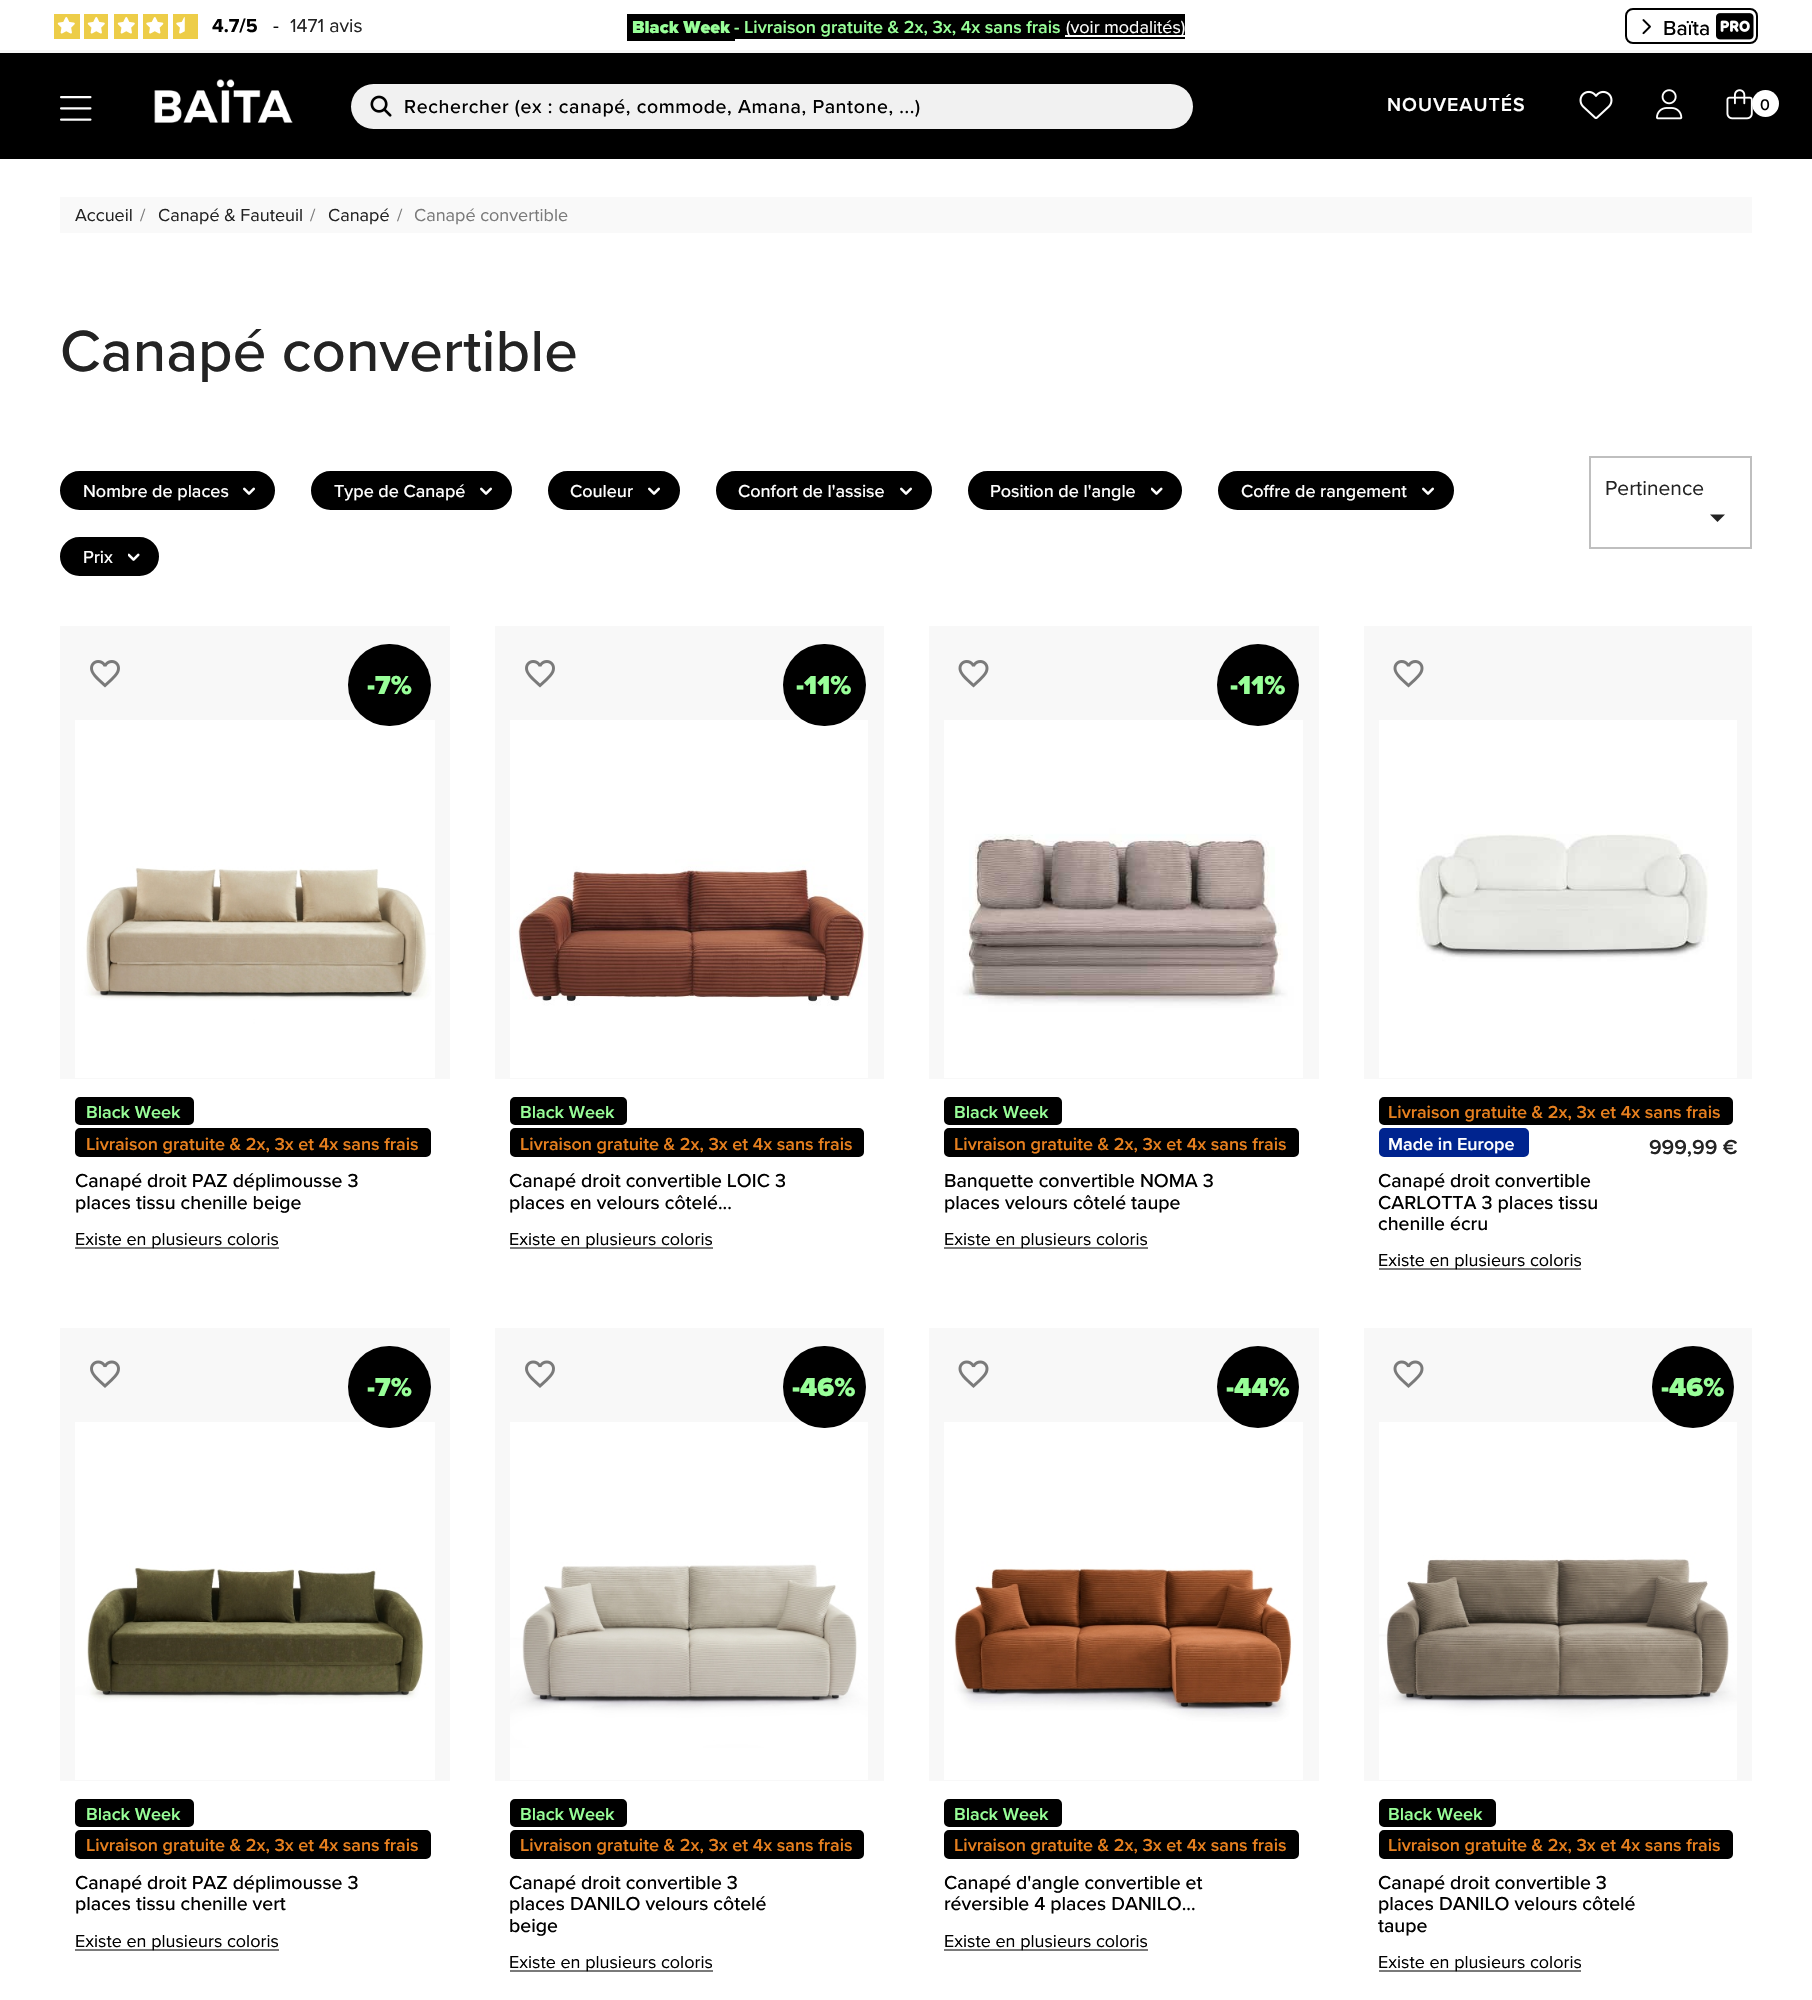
void draw(SkCanvas* c) {
SkPaint p;
p.setAntiAlias(true);
auto F=[&](const char* family, int weight, float size, bool italic = false){SkFontStyle style(weight, SkFontStyle::kNormal_Width,italic ? SkFontStyle::kItalic_Slant : SkFontStyle::kUpright_Slant);SkFont result(fontMgr->matchFamilyStyle(family, style), size);result.setSubpixel(true);return result;};
auto T=[&](const char* s, float x, float y, const SkFont& font){c->drawString(s, x, y, font, p);};
auto L=[&](const char* s, float x, float y, const SkFont& font, const SkPaint& ink, float letter, float word){std::vector<SkGlyphID> glyphs(font.countText(s, strlen(s), SkTextEncoding::kUTF8));std::vector<float> xs(glyphs.size());font.textToGlyphs(s, strlen(s), SkTextEncoding::kUTF8, glyphs);font.getXPos(glyphs, xs, x);float extra = 0;for (size_t i = 0; i < glyphs.size(); i++) {xs[i] += extra;extra += letter + word * (glyphs[i] == font.unicharToGlyph(' '));}c->drawTextBlob(SkTextBlob::MakeFromPosHGlyphs(glyphs, xs, y, font), 0, 0, ink);};
auto R=[&](float x, float y, float w, float h){c->drawRect(SkRect::MakeXYWH(x, y, w, h), p);};
auto Q=[&](float x, float y, float w, float h, float radius){c->drawRoundRect(SkRect::MakeXYWH(x, y, w, h), radius, radius, p);};
auto I=[&](const char* path, float x, float y, float w, float h){auto image = SkImages::DeferredFromEncodedData(SkData::MakeFromFileName(path));c->drawImageRect(image, SkRect::MakeXYWH(x, y, w, h), SkSamplingOptions());};
auto P=[&](const char* data, bool evenOdd = false){SkPath result = *SkParsePath::FromSVGString(data);if (evenOdd) result.setFillType(SkPathFillType::kEvenOdd);return result;};
c->clear(0xffffffff);
p.setColor(0xffedcd48);
R(54,14,26,25);
I("1.png",57,17,18,17);
R(84,14,24,25);
I("1.png",87,17,18,17);
R(114,14,24,25);
I("1.png",117,17,18,17);
R(143,14,25,25);
I("2.png",146,17,18,17);
R(173,14,25,25);
I("3.png",176,17,9,17);
auto f1 = F("Proxima Nova",700,19.5);
p.setColor(0xff000000);
T("4.7/5",212,32,f1);
auto f2 = F("Proxima Nova",400,19.5);
T("-",273,32,f2);
p.setColor(0xff232323);
T("1471 avis",290,32,f2);
p.setColor(0xff000000);
R(627,14,108,27);
auto f3 = F("Proxima Nova",900,18);
p.setColor(0xff98ff98);
T("Black Week",632,33,f3);
p.setColor(0xff000000);
R(735,14,450,25);
auto f4 = F("Proxima Nova",600,18);
p.setColor(0xff98ff98);
T("- Livraison gratuite & 2x, 3x, 4x sans frais",734,33,f4);
p.setColor(0xffffffff);
R(1065,35,120,2);
auto f5 = F("Proxima Nova",400,18);
T("(voir modalités)",1066,33,f5);
p.setStroke(true);
p.setStrokeWidth(2);
p.setColor(0xff000000);
c->drawRoundRect(SkRect::MakeXYWH(1626,9,131,34),7,7,p);
I("4.png",1642,19,9,16);
auto f6 = F("Proxima Nova",500,21);
p.setStroke(false);
T("Baïta",1663,35,f6);
I("5.png",1716,13,38,27);
p.setColor(0xfff6f6f6);
R(0,50,1812,3);
p.setColor(0xff000000);
R(0,53,1812,106);
I("6.png",60,96,32,25);
I("7.png",154,79,139,44);
p.setColor(0xfff1f1f1);
Q(351,84,842,45,22.5);
I("8.png",370,95,22,22);
auto f7 = F("Proxima Nova",500,19.5);
p.setColor(0xff000000);
L("Rechercher (ex : canapé, commode, Amana, Pantone, ...)",404,113,f7,p,.6,0);
auto f8 = F("Proxima Nova",600,19.5);
p.setColor(0xffffffff);
L("NOUVEAUTÉS",1387,111,f8,p,1,0);
I("9.png",1579,90,34,29);
I("10.png",1656,89,27,31);
I("11.png",1726,89,27,31);
c->drawCircle(1765.5,103.5,13.5,p);
auto f9 = F("Proxima Nova",500,16);
p.setColor(0xff000000);
T("0",1760,110,f9);
p.setColor(0xfff9f9f9);
R(60,197,1692,36);
p.setColor(0xff232323);
T("Accueil",75,221,f5);
p.setColor(0xff7a7a7a);
T("/",140,221,f5);
p.setColor(0xff232323);
T("Canapé & Fauteuil",158,221,f5);
p.setColor(0xff7a7a7a);
T("/",310,221,f5);
p.setColor(0xff232323);
T("Canapé",328,221,f5);
p.setColor(0xff7a7a7a);
T("/",397,221,f5);
T("Canapé convertible",414,221,f5);
auto f10 = F("Proxima Nova",500,60);
p.setColor(0xff232323);
T("Canapé convertible",60,371,f10);
p.setColor(0xff000000);
c->drawRoundRect(SkRect::MakeXYWH(61,472,213,37),18.5,18.5,p);
p.setStroke(true);
c->drawRoundRect(SkRect::MakeXYWH(61,472,213,37),18.5,18.5,p);
auto f11 = F("Proxima Nova",500,18);
p.setStroke(false);
p.setColor(0xffffffff);
T("Nombre de places",83,497,f11);
I("12.png",243,487,12,8);
p.setColor(0xff000000);
c->drawRoundRect(SkRect::MakeXYWH(312,472,199,37),18.5,18.5,p);
p.setStroke(true);
c->drawRoundRect(SkRect::MakeXYWH(312,472,199,37),18.5,18.5,p);
p.setStroke(false);
p.setColor(0xffffffff);
T("Type de Canapé",334,497,f11);
I("12.png",480,487,12,8);
p.setColor(0xff000000);
c->drawRoundRect(SkRect::MakeXYWH(549,472,130,37),18.5,18.5,p);
p.setStroke(true);
c->drawRoundRect(SkRect::MakeXYWH(549,472,130,37),18.5,18.5,p);
p.setStroke(false);
p.setColor(0xffffffff);
T("Couleur",570,497,f11);
I("12.png",648,487,12,8);
p.setColor(0xff000000);
c->drawRoundRect(SkRect::MakeXYWH(717,472,214,37),18.5,18.5,p);
p.setStroke(true);
c->drawRoundRect(SkRect::MakeXYWH(717,472,214,37),18.5,18.5,p);
p.setStroke(false);
p.setColor(0xffffffff);
T("Confort de l'assise",738,497,f11);
I("12.png",900,487,12,8);
p.setColor(0xff000000);
c->drawRoundRect(SkRect::MakeXYWH(969,472,212,37),18.5,18.5,p);
p.setStroke(true);
c->drawRoundRect(SkRect::MakeXYWH(969,472,212,37),18.5,18.5,p);
p.setStroke(false);
p.setColor(0xffffffff);
T("Position de l'angle",990,497,f11);
I("13.png",1151,487,12,8);
p.setColor(0xff000000);
c->drawRoundRect(SkRect::MakeXYWH(1219,472,234,37),18.5,18.5,p);
p.setStroke(true);
c->drawRoundRect(SkRect::MakeXYWH(1219,472,234,37),18.5,18.5,p);
p.setStroke(false);
p.setColor(0xffffffff);
T("Coffre de rangement",1241,497,f11);
I("12.png",1422,487,12,8);
p.setColor(0xff000000);
c->drawRoundRect(SkRect::MakeXYWH(61,538,97,37),18.5,18.5,p);
p.setStroke(true);
c->drawRoundRect(SkRect::MakeXYWH(61,538,97,37),18.5,18.5,p);
p.setStroke(false);
p.setColor(0xffffffff);
T("Prix",83,563,f11);
I("13.png",128,553,12,8);
p.setStroke(true);
p.setColor(0xffbfbfbf);
c->drawRect(SkRect::MakeXYWH(1590,457,161,91),p);
auto f12 = F("Proxima Nova",400,21);
p.setStroke(false);
p.setColor(0xff232323);
T("Pertinence",1605,495,f12);
c->drawPath(P("M1710 514.5h15l-7.5 7.5z"),p);
p.setColor(0xfff8f8f8);
R(60,626,390,453);
I("14.png",90,660,30,28);
I("15.png",75,720,360,358);
p.setColor(0xff000000);
Q(348,644,83,82,41);
auto f13 = F("Proxima Nova",900,27);
p.setColor(0xff98ff98);
T("-7%",367,694,f13);
p.setColor(0xff000000);
c->drawRoundRect(SkRect::MakeXYWH(76,1098,117,26),4,4,p);
p.setStroke(true);
c->drawRoundRect(SkRect::MakeXYWH(76,1098,117,26),4,4,p);
p.setStroke(false);
p.setColor(0xff98ff98);
T("Black Week",86,1118,f4);
p.setColor(0xff000000);
c->drawRoundRect(SkRect::MakeXYWH(76,1129,354,27),4,4,p);
p.setStroke(true);
c->drawRoundRect(SkRect::MakeXYWH(76,1129,354,27),4,4,p);
p.setStroke(false);
p.setColor(0xffe67f1e);
T("Livraison gratuite & 2x, 3x et 4x sans frais",86,1150,f4);
p.setColor(0xff000000);
T("Canapé droit PAZ déplimousse 3",75,1187,f7);
T("places tissu chenille beige",75,1209,f7);
p.setColor(0xff7a7a7a);
R(75,1247,204,2);
p.setColor(0xff000000);
T("Existe en plusieurs coloris",75,1245,f5);
p.setColor(0xfff8f8f8);
R(495,626,389,453);
I("14.png",525,660,30,28);
I("16.png",510,720,358,358);
p.setColor(0xff000000);
Q(783,644,83,82,41);
p.setColor(0xff98ff98);
T("-11%",796,694,f13);
p.setColor(0xff000000);
c->drawRoundRect(SkRect::MakeXYWH(511,1098,115,26),4,4,p);
p.setStroke(true);
c->drawRoundRect(SkRect::MakeXYWH(511,1098,115,26),4,4,p);
p.setStroke(false);
p.setColor(0xff98ff98);
T("Black Week",520,1118,f4);
p.setColor(0xff000000);
c->drawRoundRect(SkRect::MakeXYWH(511,1129,352,27),4,4,p);
p.setStroke(true);
c->drawRoundRect(SkRect::MakeXYWH(511,1129,352,27),4,4,p);
p.setStroke(false);
p.setColor(0xffe67f1e);
T("Livraison gratuite & 2x, 3x et 4x sans frais",520,1150,f4);
p.setColor(0xff000000);
T("Canapé droit convertible LOIC 3",509,1187,f7);
T("places en velours côtelé...",509,1209,f7);
p.setColor(0xff7a7a7a);
R(510,1247,203,2);
p.setColor(0xff000000);
T("Existe en plusieurs coloris",509,1245,f5);
p.setColor(0xfff8f8f8);
R(929,626,390,453);
I("17.png",958,660,31,28);
I("18.png",944,720,359,358);
p.setColor(0xff000000);
c->drawCircle(1258,685,41,p);
p.setColor(0xff98ff98);
T("-11%",1230,694,f13);
p.setColor(0xff000000);
c->drawRoundRect(SkRect::MakeXYWH(945,1098,116,26),4,4,p);
p.setStroke(true);
c->drawRoundRect(SkRect::MakeXYWH(945,1098,116,26),4,4,p);
p.setStroke(false);
p.setColor(0xff98ff98);
T("Black Week",954,1118,f4);
p.setColor(0xff000000);
c->drawRoundRect(SkRect::MakeXYWH(945,1129,353,27),4,4,p);
p.setStroke(true);
c->drawRoundRect(SkRect::MakeXYWH(945,1129,353,27),4,4,p);
p.setStroke(false);
p.setColor(0xffe67f1e);
T("Livraison gratuite & 2x, 3x et 4x sans frais",954,1150,f4);
p.setColor(0xff000000);
T("Banquette convertible NOMA 3",944,1187,f7);
T("places velours côtelé taupe",944,1209,f7);
p.setColor(0xff7a7a7a);
R(944,1247,204,2);
p.setColor(0xff000000);
T("Existe en plusieurs coloris",944,1245,f5);
p.setColor(0xfff8f8f8);
R(1364,626,388,453);
I("19.png",1379,720,358,358);
I("17.png",1393,660,31,28);
p.setColor(0xff000000);
c->drawRoundRect(SkRect::MakeXYWH(1380,1098,352,26),4,4,p);
p.setStroke(true);
c->drawRoundRect(SkRect::MakeXYWH(1380,1098,352,26),4,4,p);
p.setStroke(false);
p.setColor(0xffe67f1e);
T("Livraison gratuite & 2x, 3x et 4x sans frais",1388,1118,f4);
p.setColor(0xff00248f);
c->drawRoundRect(SkRect::MakeXYWH(1380,1129,148,27),4,4,p);
p.setStroke(true);
c->drawRoundRect(SkRect::MakeXYWH(1380,1129,148,27),4,4,p);
p.setStroke(false);
p.setColor(0xffffffff);
T("Made in Europe",1388,1150,f4);
auto f14 = F("Proxima Nova",600,21);
p.setColor(0xff232323);
T("999,99 €",1649,1154,f14);
p.setColor(0xff000000);
T("Canapé droit convertible",1378,1187,f7);
T("CARLOTTA 3 places tissu",1378,1209,f7);
T("chenille écru",1378,1230,f7);
p.setColor(0xff7a7a7a);
R(1379,1268,202,2);
p.setColor(0xff000000);
T("Existe en plusieurs coloris",1378,1266,f5);
p.setColor(0xfff8f8f8);
R(60,1328,390,453);
I("20.png",90,1360,30,28);
I("21.png",75,1422,360,358);
p.setColor(0xff000000);
Q(348,1346,83,82,41);
p.setColor(0xff98ff98);
T("-7%",367,1396,f13);
p.setColor(0xff000000);
c->drawRoundRect(SkRect::MakeXYWH(76,1800,117,26),4,4,p);
p.setStroke(true);
c->drawRoundRect(SkRect::MakeXYWH(76,1800,117,26),4,4,p);
p.setStroke(false);
p.setColor(0xff98ff98);
T("Black Week",86,1820,f4);
p.setColor(0xff000000);
c->drawRoundRect(SkRect::MakeXYWH(76,1831,354,27),4,4,p);
p.setStroke(true);
c->drawRoundRect(SkRect::MakeXYWH(76,1831,354,27),4,4,p);
p.setStroke(false);
p.setColor(0xffe67f1e);
T("Livraison gratuite & 2x, 3x et 4x sans frais",86,1851,f4);
p.setColor(0xff000000);
T("Canapé droit PAZ déplimousse 3",75,1889,f7);
T("places tissu chenille vert",75,1910,f7);
p.setColor(0xff7a7a7a);
R(75,1949,204,2);
p.setColor(0xff000000);
T("Existe en plusieurs coloris",75,1947,f5);
p.setColor(0xfff8f8f8);
R(495,1328,389,453);
I("20.png",525,1360,30,28);
I("22.png",510,1422,358,358);
p.setColor(0xff000000);
Q(783,1346,83,82,41);
p.setColor(0xff98ff98);
T("-46%",792,1396,f13);
p.setColor(0xff000000);
c->drawRoundRect(SkRect::MakeXYWH(511,1800,115,26),4,4,p);
p.setStroke(true);
c->drawRoundRect(SkRect::MakeXYWH(511,1800,115,26),4,4,p);
p.setStroke(false);
p.setColor(0xff98ff98);
T("Black Week",520,1820,f4);
p.setColor(0xff000000);
c->drawRoundRect(SkRect::MakeXYWH(511,1831,352,27),4,4,p);
p.setStroke(true);
c->drawRoundRect(SkRect::MakeXYWH(511,1831,352,27),4,4,p);
p.setStroke(false);
p.setColor(0xffe67f1e);
T("Livraison gratuite & 2x, 3x et 4x sans frais",520,1851,f4);
p.setColor(0xff000000);
T("Canapé droit convertible 3",509,1889,f7);
T("places DANILO velours côtelé",509,1910,f7);
T("beige",509,1932,f7);
p.setColor(0xff7a7a7a);
R(510,1970,203,2);
p.setColor(0xff000000);
T("Existe en plusieurs coloris",509,1968,f5);
p.setColor(0xfff8f8f8);
R(929,1328,390,453);
I("23.png",958,1360,31,28);
I("24.png",944,1422,359,358);
p.setColor(0xff000000);
c->drawCircle(1258,1387,41,p);
p.setColor(0xff98ff98);
T("-44%",1226,1396,f13);
p.setColor(0xff000000);
c->drawRoundRect(SkRect::MakeXYWH(945,1800,116,26),4,4,p);
p.setStroke(true);
c->drawRoundRect(SkRect::MakeXYWH(945,1800,116,26),4,4,p);
p.setStroke(false);
p.setColor(0xff98ff98);
T("Black Week",954,1820,f4);
p.setColor(0xff000000);
c->drawRoundRect(SkRect::MakeXYWH(945,1831,353,27),4,4,p);
p.setStroke(true);
c->drawRoundRect(SkRect::MakeXYWH(945,1831,353,27),4,4,p);
p.setStroke(false);
p.setColor(0xffe67f1e);
T("Livraison gratuite & 2x, 3x et 4x sans frais",954,1851,f4);
p.setColor(0xff000000);
T("Canapé d'angle convertible et",944,1889,f7);
T("réversible 4 places DANILO...",944,1910,f7);
p.setColor(0xff7a7a7a);
R(944,1949,204,2);
p.setColor(0xff000000);
T("Existe en plusieurs coloris",944,1947,f5);
p.setColor(0xfff8f8f8);
R(1364,1328,388,453);
I("23.png",1393,1360,31,28);
I("25.png",1379,1422,358,358);
p.setColor(0xff000000);
c->drawCircle(1693,1387,41,p);
p.setColor(0xff98ff98);
T("-46%",1661,1396,f13);
p.setColor(0xff000000);
c->drawRoundRect(SkRect::MakeXYWH(1380,1800,115,26),4,4,p);
p.setStroke(true);
c->drawRoundRect(SkRect::MakeXYWH(1380,1800,115,26),4,4,p);
p.setStroke(false);
p.setColor(0xff98ff98);
T("Black Week",1388,1820,f4);
p.setColor(0xff000000);
c->drawRoundRect(SkRect::MakeXYWH(1380,1831,352,27),4,4,p);
p.setStroke(true);
c->drawRoundRect(SkRect::MakeXYWH(1380,1831,352,27),4,4,p);
p.setStroke(false);
p.setColor(0xffe67f1e);
T("Livraison gratuite & 2x, 3x et 4x sans frais",1388,1851,f4);
p.setColor(0xff000000);
T("Canapé droit convertible 3",1378,1889,f7);
T("places DANILO velours côtelé",1378,1910,f7);
T("taupe",1378,1932,f7);
p.setColor(0xff7a7a7a);
R(1379,1970,202,2);
p.setColor(0xff000000);
T("Existe en plusieurs coloris",1378,1968,f5);
}
